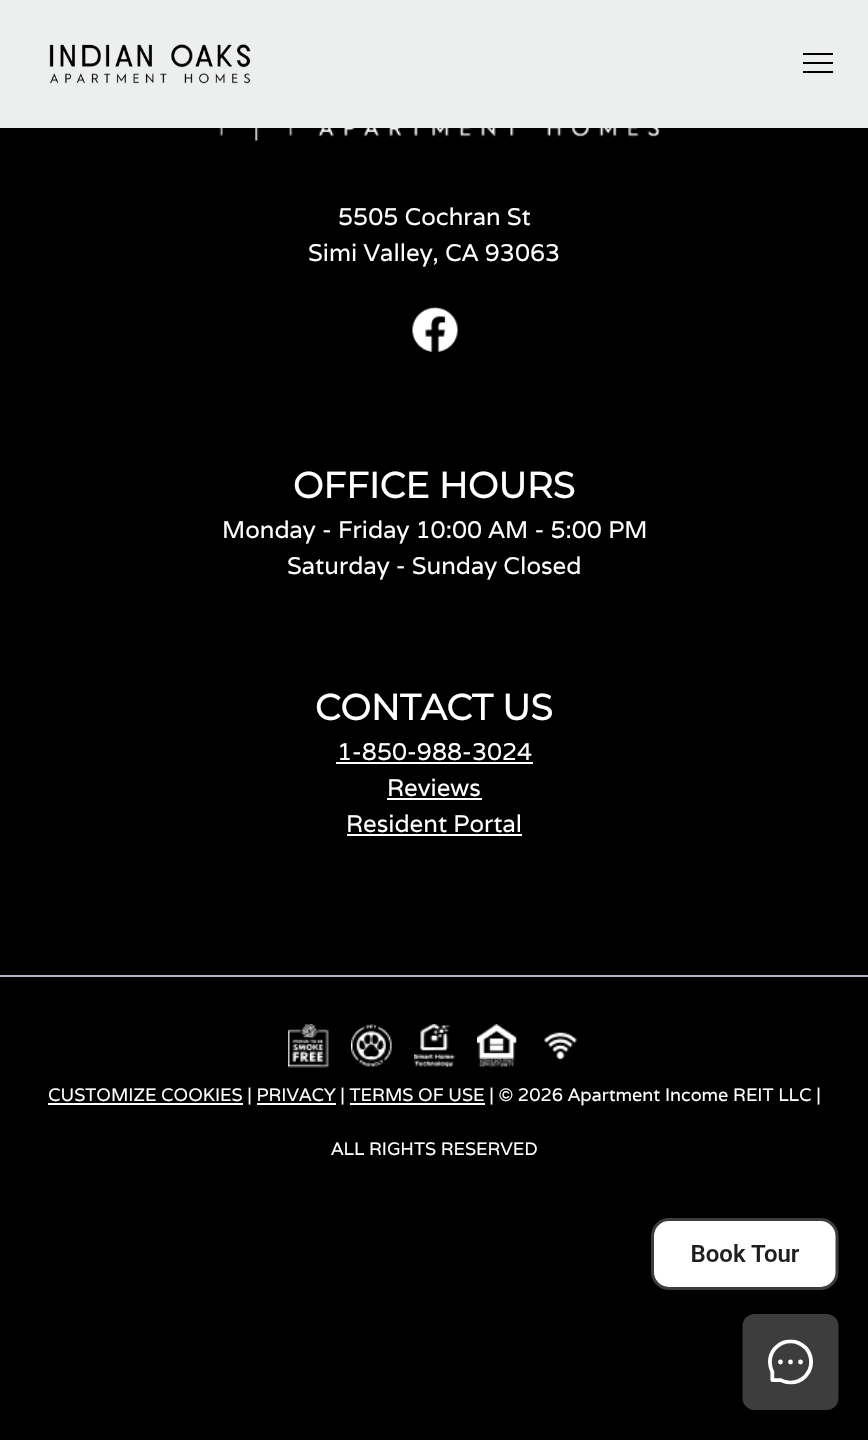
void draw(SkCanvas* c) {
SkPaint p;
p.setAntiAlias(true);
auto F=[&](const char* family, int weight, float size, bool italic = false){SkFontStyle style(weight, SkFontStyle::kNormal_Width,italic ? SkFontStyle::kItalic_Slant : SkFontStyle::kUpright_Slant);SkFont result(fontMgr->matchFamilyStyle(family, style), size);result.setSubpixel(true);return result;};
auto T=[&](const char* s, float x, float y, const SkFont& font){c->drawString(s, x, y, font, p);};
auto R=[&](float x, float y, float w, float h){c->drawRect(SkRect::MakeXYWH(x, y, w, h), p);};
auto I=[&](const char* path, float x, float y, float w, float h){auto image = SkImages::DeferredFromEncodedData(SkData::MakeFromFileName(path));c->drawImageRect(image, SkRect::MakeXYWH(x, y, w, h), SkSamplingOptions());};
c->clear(0xff000000);
p.setColor(0xffedeeee);
R(0,0,868,128);
I("1.png",49,44,202,40);
p.setColor(0xff000000);
R(803,53,30,2);
R(803,62,30,2);
R(803,71,30,2);
I("2.png",219,128,441,14);
auto f1 = F("Varela",400,24);
p.setColor(0xffffffff);
T("5505 Cochran St",338,225,f1);
T("Simi Valley, CA 93063",308,261,f1);
I("3.png",412,307,46,45);
auto f2 = F("Montserrat",700,36);
T("OFFICE HOURS",293,498,f2);
T("Monday - Friday 10:00 AM - 5:00 PM",222,538,f1);
T("Saturday - Sunday Closed",287,574,f1);
T("CONTACT US",315,720,f2);
T("1-850-988-3024",337,760,f1);
R(336,762,197,2);
T("Reviews",387,796,f1);
R(387,798,95,2);
T("Resident Portal",346,832,f1);
R(347,834,175,2);
p.setColor(0xffacb3c2);
R(0,975,868,2);
I("4.png",288,1024,41,44);
I("5.png",351,1024,41,44);
I("6.png",414,1024,41,44);
I("7.png",477,1024,40,44);
I("8.png",543,1032,34,28);
p.setColor(0xffffffff);
R(48,1103,195,2);
auto f3 = F("Varela",400,18);
T("CUSTOMIZE COOKIES | PRIVACY | TERMS OF USE | © 2026 Apartment Income REIT LLC |",48,1101,f3);
R(257,1103,79,2);
R(350,1103,135,2);
T("ALL RIGHTS RESERVED",331,1155,f3);
I("9.png",651,1218,188,192);
}
